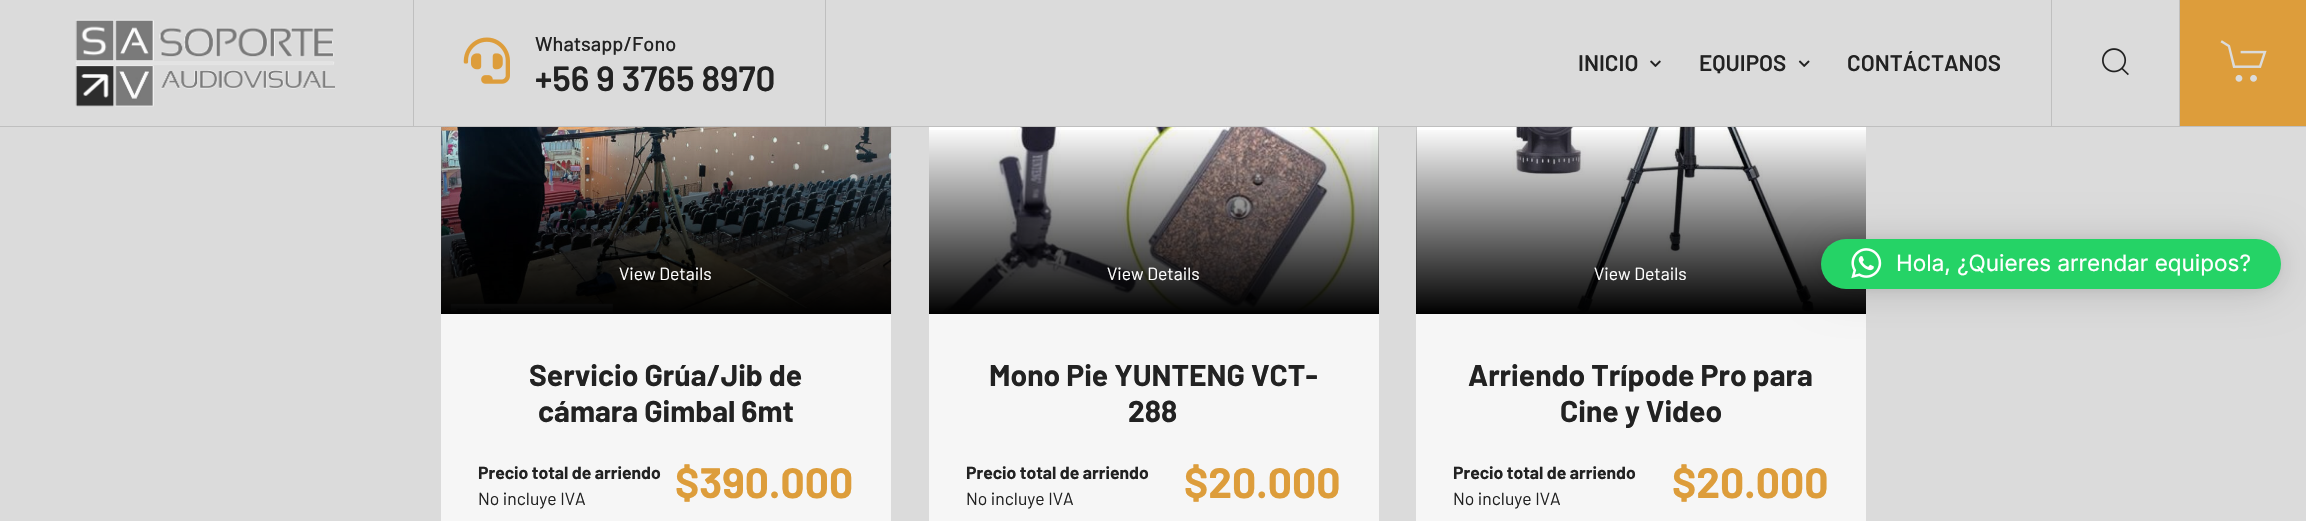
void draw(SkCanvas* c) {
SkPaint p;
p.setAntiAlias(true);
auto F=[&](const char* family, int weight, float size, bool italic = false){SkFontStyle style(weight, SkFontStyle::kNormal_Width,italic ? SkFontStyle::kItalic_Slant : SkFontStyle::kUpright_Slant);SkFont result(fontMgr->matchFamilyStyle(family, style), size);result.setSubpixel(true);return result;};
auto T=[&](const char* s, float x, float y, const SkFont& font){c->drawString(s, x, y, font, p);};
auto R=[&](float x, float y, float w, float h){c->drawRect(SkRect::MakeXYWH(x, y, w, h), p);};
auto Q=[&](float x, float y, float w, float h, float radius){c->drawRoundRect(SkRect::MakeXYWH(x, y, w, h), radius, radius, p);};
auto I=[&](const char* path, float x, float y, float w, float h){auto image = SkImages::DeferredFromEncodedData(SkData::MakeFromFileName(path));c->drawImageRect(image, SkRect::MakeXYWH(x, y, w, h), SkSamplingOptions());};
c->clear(0xffdbdbdb);
p.setColor(0xffbfbfbf);
R(413,0,1,126);
I("1.png",75,19,260,88);
R(825,0,1,126);
I("2.png",463,37,47,47);
auto f1 = F("Barlow",500,20);
p.setColor(0xff222222);
T("Whatsapp/Fono",535,51,f1);
auto f2 = F("Barlow",600,35);
T("+56 9 3765 8970",535,91,f2);
p.setColor(0xffbfbfbf);
R(2051,0,1,126);
auto f3 = F("Barlow",600,22.5);
p.setColor(0xff222222);
T("INICIO",1578,71,f3);
I("3.png",1650,60,11,7);
T("EQUIPOS",1699,71,f3);
I("4.png",1798,60,12,7);
T("CONTÁCTANOS",1847,71,f3);
p.setColor(0xffbfbfbf);
R(2179,0,1,126);
I("5.png",2102,48,27,28);
p.setColor(0xffdd9d3b);
R(2180,0,126,126);
I("6.png",2220,40,47,42);
p.setColor(0xffbfbfbf);
R(0,126,2306,1);
p.setColor(0xfff6f6f6);
R(441,314,450,207);
p.setColor(0xff888888);
R(441,127,1,186);
I("7.png",441,127,451,187);
{
const SkColor colors[] = {0xff000000,0x00000000};
const float stops[] = {0,1};
const SkPoint ends[] = {{666,314}, {666,126}};
p.setShader(SkGradientShader::MakeLinear(ends, colors, stops, 2, SkTileMode::kClamp));
p.setAlpha(255);
}
R(441,130,450,184);
auto f4 = F("Barlow",400,17.5);
p.setShader(nullptr);
p.setColor(0xffffffff);
T("View Details",619,280,f4);
auto f5 = F("Barlow",700,30);
p.setColor(0xff222222);
T("Servicio Grúa/Jib de",529,386,f5);
T("cámara Gimbal 6mt",538,422,f5);
auto f6 = F("Barlow",700,17.5);
T("Precio total de arriendo",478,479,f6);
T("No incluye IVA",478,505,f4);
auto f7 = F("Barlow",700,42.5);
p.setColor(0xffdd9d3b);
T("$390.000",675,498,f7);
p.setColor(0xfff6f6f6);
R(929,314,450,207);
p.setColor(0xff888888);
R(1378,127,1,186);
I("8.png",929,127,450,186);
{
const SkColor colors[] = {0xff000000,0x00000000};
const float stops[] = {0,1};
const SkPoint ends[] = {{1154,314}, {1154,126}};
p.setShader(SkGradientShader::MakeLinear(ends, colors, stops, 2, SkTileMode::kClamp));
p.setAlpha(255);
}
R(929,130,450,184);
p.setShader(nullptr);
p.setColor(0xffffffff);
T("View Details",1107,280,f4);
p.setColor(0xff222222);
T("Mono Pie YUNTENG VCT-",989,386,f5);
T("288",1128,422,f5);
T("Precio total de arriendo",966,479,f6);
T("No incluye IVA",966,505,f4);
p.setColor(0xffdd9d3b);
T("$20.000",1184,498,f7);
p.setColor(0xfff6f6f6);
R(1416,314,450,207);
p.setColor(0xff888888);
R(1416,127,1,186);
I("9.png",1416,127,450,186);
{
const SkColor colors[] = {0xff000000,0x00000000};
const float stops[] = {0,1};
const SkPoint ends[] = {{1641,314}, {1641,126}};
p.setShader(SkGradientShader::MakeLinear(ends, colors, stops, 2, SkTileMode::kClamp));
p.setAlpha(255);
}
R(1416,130,450,184);
p.setShader(nullptr);
p.setColor(0xffffffff);
T("View Details",1594,280,f4);
p.setColor(0xff222222);
T("Arriendo Trípode Pro para",1468,386,f5);
T("Cine y Video",1560,422,f5);
T("Precio total de arriendo",1453,479,f6);
T("No incluye IVA",1453,505,f4);
p.setColor(0xffdd9d3b);
T("$20.000",1672,498,f7);
p.setColor(0x29000000);
p.setMaskFilter(SkMaskFilter::MakeBlur(kNormal_SkBlurStyle, 20));
c->drawRoundRect(SkRect::MakeXYWH(1821,241,460,50),25,25,p);
p.setMaskFilter(nullptr);
p.setColor(0x0f000000);
p.setMaskFilter(SkMaskFilter::MakeBlur(kNormal_SkBlurStyle, 4));
c->drawRoundRect(SkRect::MakeXYWH(1821,240,460,50),25,25,p);
p.setMaskFilter(nullptr);
p.setColor(0xff25d366);
Q(1821,239,460,50,25);
I("10.png",1851,248,31,31);
auto f8 = F("Inter",400,22.5);
p.setColor(0xffffffff);
T("Hola, ¿Quieres arrendar equipos?",1896,271,f8);
}
